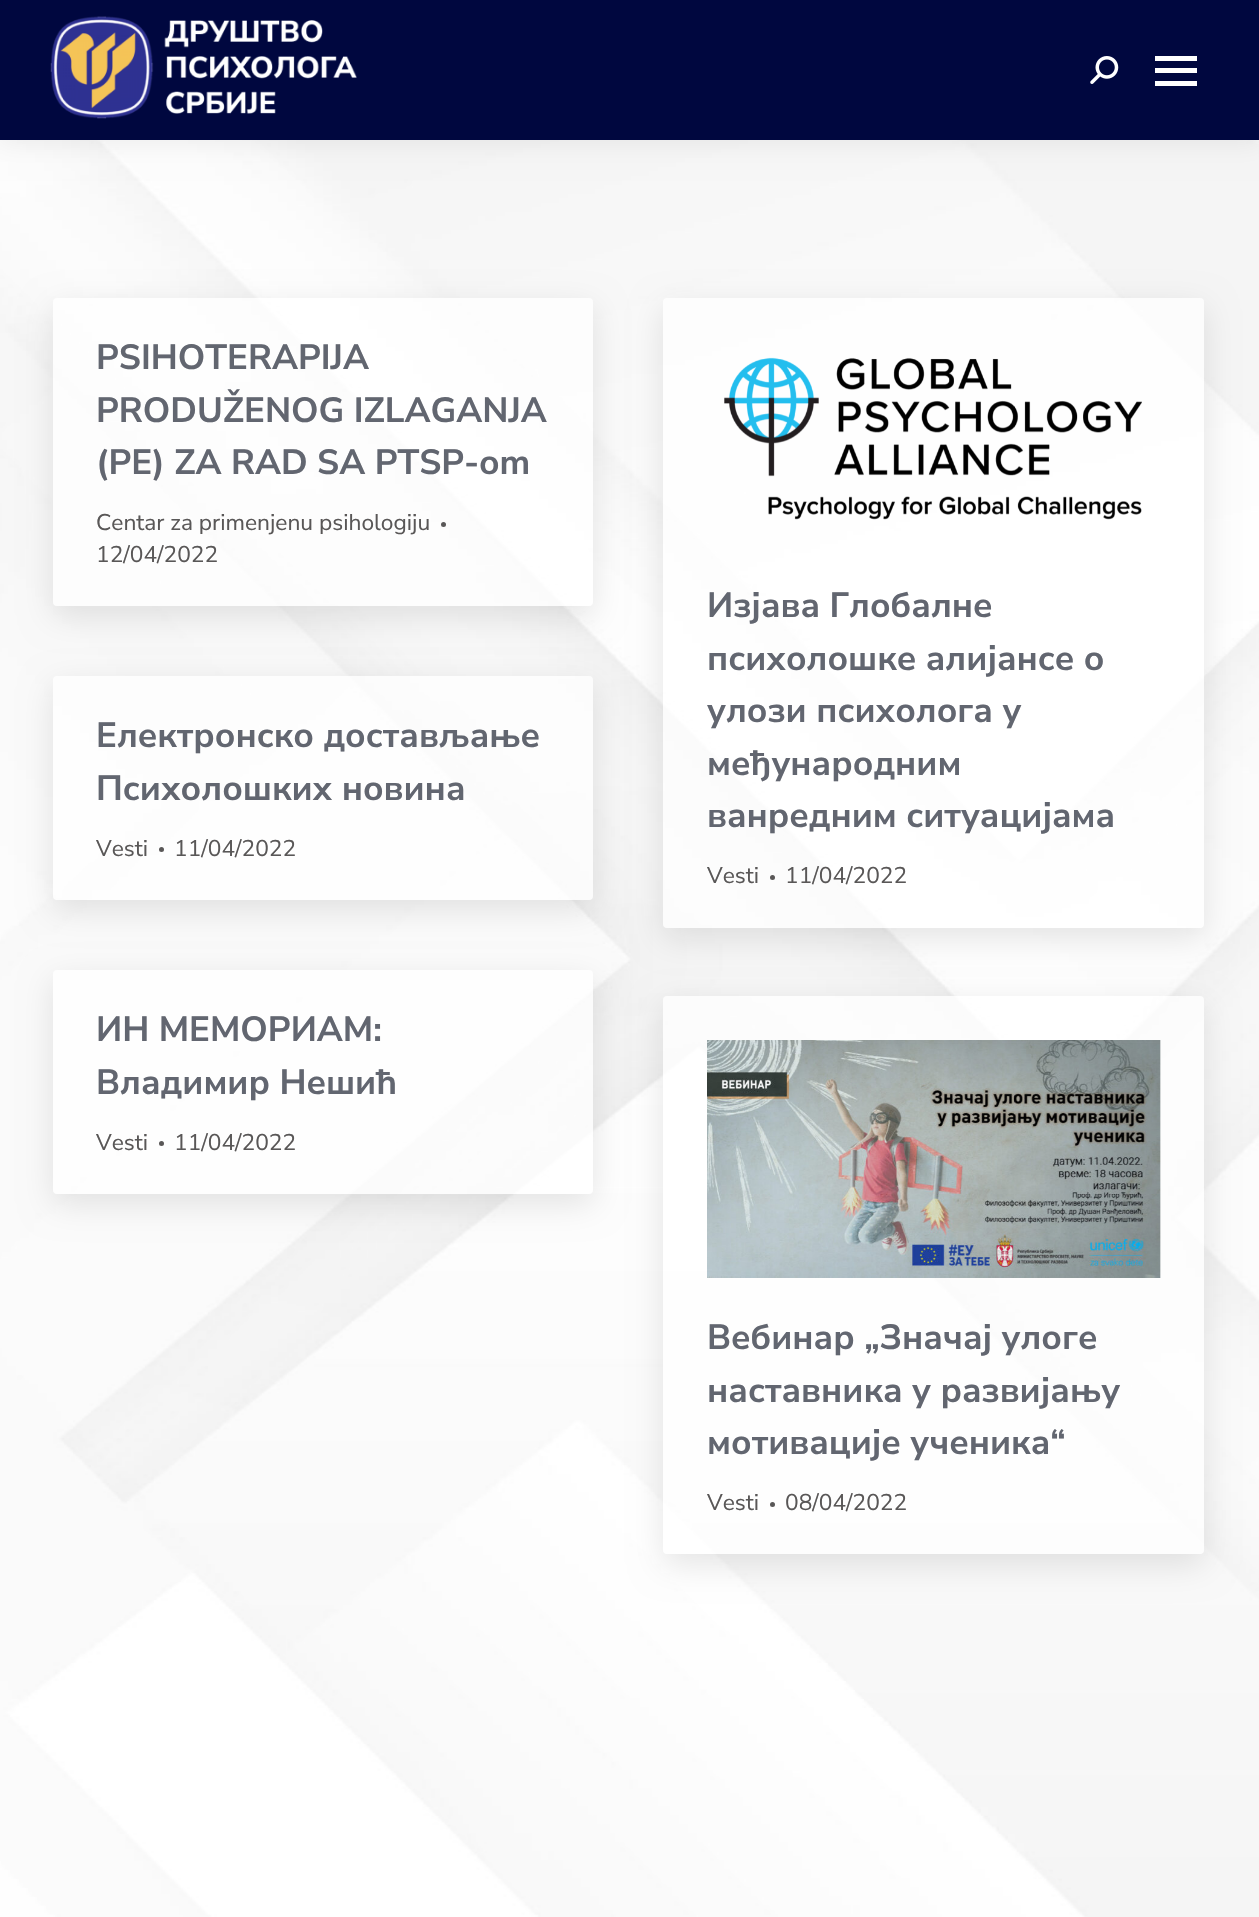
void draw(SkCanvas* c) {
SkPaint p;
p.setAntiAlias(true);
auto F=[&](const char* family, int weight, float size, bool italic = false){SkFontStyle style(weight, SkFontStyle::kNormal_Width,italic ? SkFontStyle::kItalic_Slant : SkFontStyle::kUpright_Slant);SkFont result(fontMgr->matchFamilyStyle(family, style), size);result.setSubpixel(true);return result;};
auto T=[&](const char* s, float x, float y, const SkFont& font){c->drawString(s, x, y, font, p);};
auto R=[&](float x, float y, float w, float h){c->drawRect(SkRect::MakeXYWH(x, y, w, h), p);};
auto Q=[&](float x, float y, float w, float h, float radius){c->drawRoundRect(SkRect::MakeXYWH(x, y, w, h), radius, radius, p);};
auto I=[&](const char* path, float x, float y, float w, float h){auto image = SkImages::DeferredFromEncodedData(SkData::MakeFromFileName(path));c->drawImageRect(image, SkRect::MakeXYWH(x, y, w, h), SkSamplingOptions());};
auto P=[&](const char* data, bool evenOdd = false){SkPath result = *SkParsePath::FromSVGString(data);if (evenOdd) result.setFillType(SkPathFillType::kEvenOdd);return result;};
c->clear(0xffffffff);
I("3.png",0,140,1259,1777);
p.setColor(0x12000000);
p.setMaskFilter(SkMaskFilter::MakeBlur(kNormal_SkBlurStyle, 13));
c->drawRect(SkRect::MakeXYWH(-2,-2,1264,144),p);
p.setMaskFilter(nullptr);
p.setColor(0xff00073f);
R(0,0,1259,140);
I("1.png",50,16,307,103);
I("2.png",1090,56,29,28);
p.setColor(0xffffffff);
R(1155,56,42,5);
R(1155,68,42,5);
R(1155,81,42,5);
c->save();
c->clipPath(P("M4 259h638v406h-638zm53 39h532c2 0 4 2 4 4v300c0 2-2 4-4 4h-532c-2 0-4-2-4-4v-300c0-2 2-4 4-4z",true),true);
p.setColor(0x1a000000);
p.setMaskFilter(SkMaskFilter::MakeBlur(kNormal_SkBlurStyle, 16));
c->drawRoundRect(SkRect::MakeXYWH(53,308,540,308),4,4,p);
p.setMaskFilter(nullptr);
c->restore();
p.setColor(0xb5ffffff);
Q(53,298,540,308,4);
auto f1 = F("Nunito Sans",700,35);
p.setColor(0xff626670);
T("PSIHOTERAPIJA",96,369,f1);
T("PRODUŽENOG IZLAGANJA",96,422,f1);
T("(PE) ZA RAD SA PTSP-om",96,474,f1);
auto f2 = F("Nunito Sans",400,22.75);
p.setColor(0xff595757);
T("Centar za primenjenu psihologiju",96,530,f2);
c->drawCircle(443.5,524.5,2.5,p);
T("12/04/2022",96,562,f2);
c->save();
c->clipPath(P("M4 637h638v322h-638zm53 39h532c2 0 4 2 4 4v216c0 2-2 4-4 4h-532c-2 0-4-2-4-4v-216c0-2 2-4 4-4z",true),true);
p.setColor(0x1a000000);
p.setMaskFilter(SkMaskFilter::MakeBlur(kNormal_SkBlurStyle, 16));
c->drawRoundRect(SkRect::MakeXYWH(53,686,540,224),4,4,p);
p.setMaskFilter(nullptr);
c->restore();
p.setColor(0xb5ffffff);
Q(53,676,540,224,4);
p.setColor(0xff626670);
T("Електронско достављање",96,747,f1);
T("Психолошких новина",96,800,f1);
p.setColor(0xff595757);
T("Vesti",96,856,f2);
c->drawCircle(161.5,849.5,2.5,p);
T("11/04/2022",174,856,f2);
c->save();
c->clipPath(P("M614 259h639v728h-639zm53 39h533c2 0 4 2 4 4v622c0 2-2 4-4 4h-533c-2 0-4-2-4-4v-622c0-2 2-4 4-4z",true),true);
p.setColor(0x1a000000);
p.setMaskFilter(SkMaskFilter::MakeBlur(kNormal_SkBlurStyle, 16));
c->drawRoundRect(SkRect::MakeXYWH(663,308,541,630),4,4,p);
p.setMaskFilter(nullptr);
c->restore();
p.setColor(0xb5ffffff);
Q(663,298,541,630,4);
I("4.png",724,357,418,163);
p.setColor(0xff626670);
T("Изјава Глобалне",707,617,f1);
T("психолошке алијансе о",707,670,f1);
T("улози психолога у",707,722,f1);
T("међународним",707,775,f1);
T("ванредним ситуацијама",707,827,f1);
p.setColor(0xff595757);
T("Vesti",707,883,f2);
c->drawCircle(772.5,877.5,2.5,p);
T("11/04/2022",785,883,f2);
c->save();
c->clipPath(P("M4 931h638v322h-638zm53 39h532c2 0 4 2 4 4v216c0 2-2 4-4 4h-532c-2 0-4-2-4-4v-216c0-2 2-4 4-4z",true),true);
p.setColor(0x1a000000);
p.setMaskFilter(SkMaskFilter::MakeBlur(kNormal_SkBlurStyle, 16));
c->drawRoundRect(SkRect::MakeXYWH(53,980,540,224),4,4,p);
p.setMaskFilter(nullptr);
c->restore();
p.setColor(0xb5ffffff);
Q(53,970,540,224,4);
p.setColor(0xff626670);
T("ИН МЕМОРИАМ:",96,1041,f1);
T("Владимир Нешић",96,1094,f1);
p.setColor(0xff595757);
T("Vesti",96,1150,f2);
c->drawCircle(161.5,1143.5,2.5,p);
T("11/04/2022",174,1150,f2);
c->save();
c->clipPath(P("M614 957h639v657h-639zm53 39h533c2 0 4 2 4 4v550c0 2-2 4-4 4h-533c-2 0-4-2-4-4v-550c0-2 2-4 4-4z",true),true);
p.setColor(0x1a000000);
p.setMaskFilter(SkMaskFilter::MakeBlur(kNormal_SkBlurStyle, 16));
c->drawRoundRect(SkRect::MakeXYWH(663,1006,541,559),4,4,p);
p.setMaskFilter(nullptr);
c->restore();
p.setColor(0xb5ffffff);
Q(663,996,541,558,4);
I("5.png",707,1040,454,238);
p.setColor(0xff626670);
T("Вебинар „Значај улоге",707,1349,f1);
T("наставника у развијању",707,1402,f1);
T("мотивације ученика“",707,1454,f1);
p.setColor(0xff595757);
T("Vesti",707,1510,f2);
c->drawCircle(772.5,1504.5,2.5,p);
T("08/04/2022",785,1510,f2);
}
